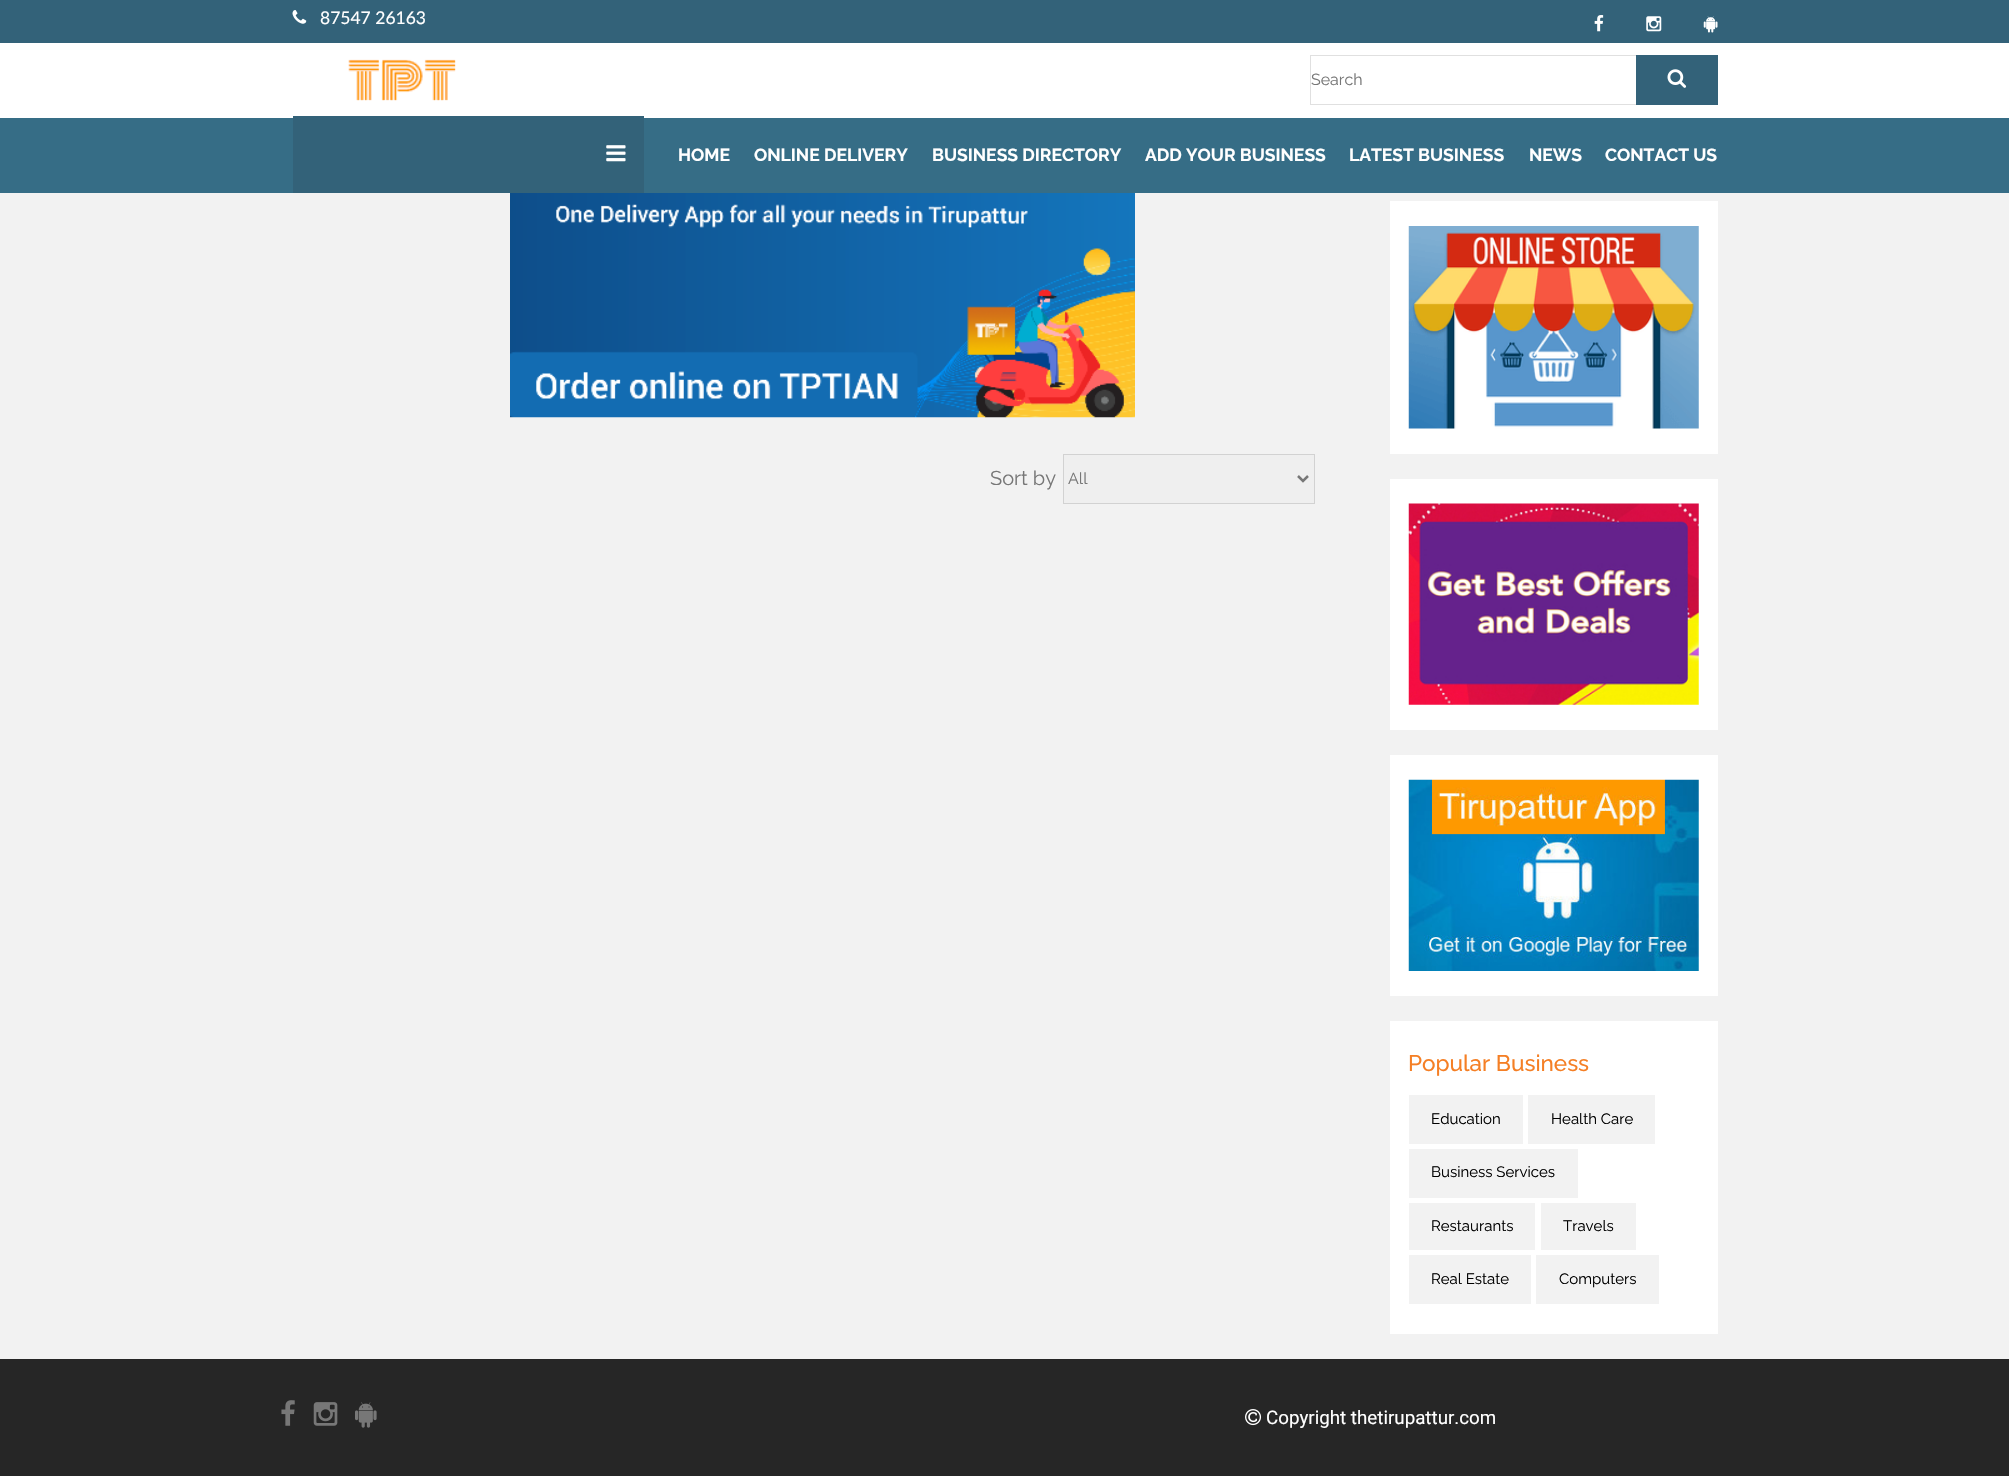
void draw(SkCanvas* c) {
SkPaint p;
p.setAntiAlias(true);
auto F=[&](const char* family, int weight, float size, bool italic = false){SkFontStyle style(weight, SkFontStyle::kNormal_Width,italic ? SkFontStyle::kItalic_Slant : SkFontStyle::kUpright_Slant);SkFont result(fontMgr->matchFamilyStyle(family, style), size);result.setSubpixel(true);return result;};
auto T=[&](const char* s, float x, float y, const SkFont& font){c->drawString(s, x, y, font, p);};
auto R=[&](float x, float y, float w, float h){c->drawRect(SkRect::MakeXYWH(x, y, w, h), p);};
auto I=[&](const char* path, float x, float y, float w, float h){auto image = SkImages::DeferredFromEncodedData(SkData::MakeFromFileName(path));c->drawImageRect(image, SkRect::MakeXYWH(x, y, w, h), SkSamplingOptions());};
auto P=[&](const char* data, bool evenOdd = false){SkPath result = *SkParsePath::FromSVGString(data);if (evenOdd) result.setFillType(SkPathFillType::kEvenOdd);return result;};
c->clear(0xff262626);
p.setColor(0xff336279);
R(0,0,2009,43);
I("1.png",292,10,15,14);
auto f1 = F("Lato",400,17.5);
p.setColor(0xffffffff);
T("87547 26163",320,24,f1);
I("2.png",1594,15,10,17);
I("3.png",1646,16,16,16);
I("4.png",1703,16,15,17);
R(0,43,2009,75);
I("5.png",348,59,108,42);
p.setStroke(true);
p.setStrokeWidth(1);
p.setColor(0xffe0e0e0);
c->drawRect(SkRect::MakeXYWH(1310.5,55.5,407,49),p);
auto f2 = F("Raleway",400,16);
p.setStroke(false);
p.setColor(0xff777777);
T("Search",1311,85,f2);
p.setColor(0xff336279);
R(1636,55,82,50);
I("6.png",1667,69,20,19);
p.setColor(0xff366d86);
R(0,118,2009,75);
auto f3 = F("Raleway",700,17.5);
p.setColor(0xffffffff);
T("HOME",678,161,f3);
T("ONLINE DELIVERY",754,161,f3);
T("BUSINESS DIRECTORY",932,161,f3);
T("ADD YOUR BUSINESS",1145,161,f3);
T("LATEST BUSINESS",1349,161,f3);
T("NEWS",1529,161,f3);
T("CONTACT US",1605,161,f3);
p.setColor(0xff336279);
R(293,116,351,77);
I("7.png",606,145,20,17);
p.setColor(0xfff2f2f2);
R(0,193,2009,1166);
I("8.png",510,193,625,225);
auto f4 = F("Raleway",400,20);
p.setColor(0xff777777);
T("Sort by",990,485,f4);
p.setColor(0xffefefef);
c->drawRect(SkRect::MakeXYWH(1063.5,454.5,251,49),p);
p.setStroke(true);
p.setColor(0xffd2d2d2);
c->drawRect(SkRect::MakeXYWH(1063.5,454.5,251,49),p);
p.setStrokeWidth(2.5);
p.setColor(0xff777777);
c->drawPath(P("M1298 476l5 5l5-5"),p);
p.setStroke(false);
T("All",1068,484,f2);
p.setColor(0xffffffff);
R(1390,201,328,253);
I("9.png",1408,226,291,203);
R(1390,479,328,251);
I("10.png",1408,503,291,202);
R(1390,755,328,241);
I("11.png",1408,779,291,192);
R(1390,1021,328,313);
auto f5 = F("Raleway",500,22.5);
p.setColor(0xfff57f25);
T("Popular Business",1408,1071,f5);
p.setColor(0xfff2f2f2);
R(1409,1095,114,49);
auto f6 = F("Raleway",400,15);
p.setColor(0xff000000);
T("Education",1431,1124,f6);
p.setColor(0xfff2f2f2);
R(1528,1095,127,49);
p.setColor(0xff000000);
T("Health Care",1551,1124,f6);
p.setColor(0xfff2f2f2);
R(1409,1149,169,49);
p.setColor(0xff000000);
T("Business Services",1431,1177,f6);
p.setColor(0xfff2f2f2);
R(1409,1203,126,47);
p.setColor(0xff000000);
T("Restaurants",1431,1231,f6);
p.setColor(0xfff2f2f2);
R(1541,1203,95,47);
p.setColor(0xff000000);
T("Travels",1563,1231,f6);
p.setColor(0xfff2f2f2);
R(1409,1255,122,49);
p.setColor(0xff000000);
T("Real Estate",1431,1284,f6);
p.setColor(0xfff2f2f2);
R(1536,1255,123,49);
p.setColor(0xff000000);
T("Computers",1559,1284,f6);
I("12.png",281,1400,14,26);
I("13.png",313,1402,25,24);
I("14.png",355,1402,22,26);
I("15.png",1245,1409,17,17);
auto f7 = F("Roboto",400,18.75);
p.setColor(0xffffffff);
T("Copyright thetirupattur.com",1266,1424,f7);
}
